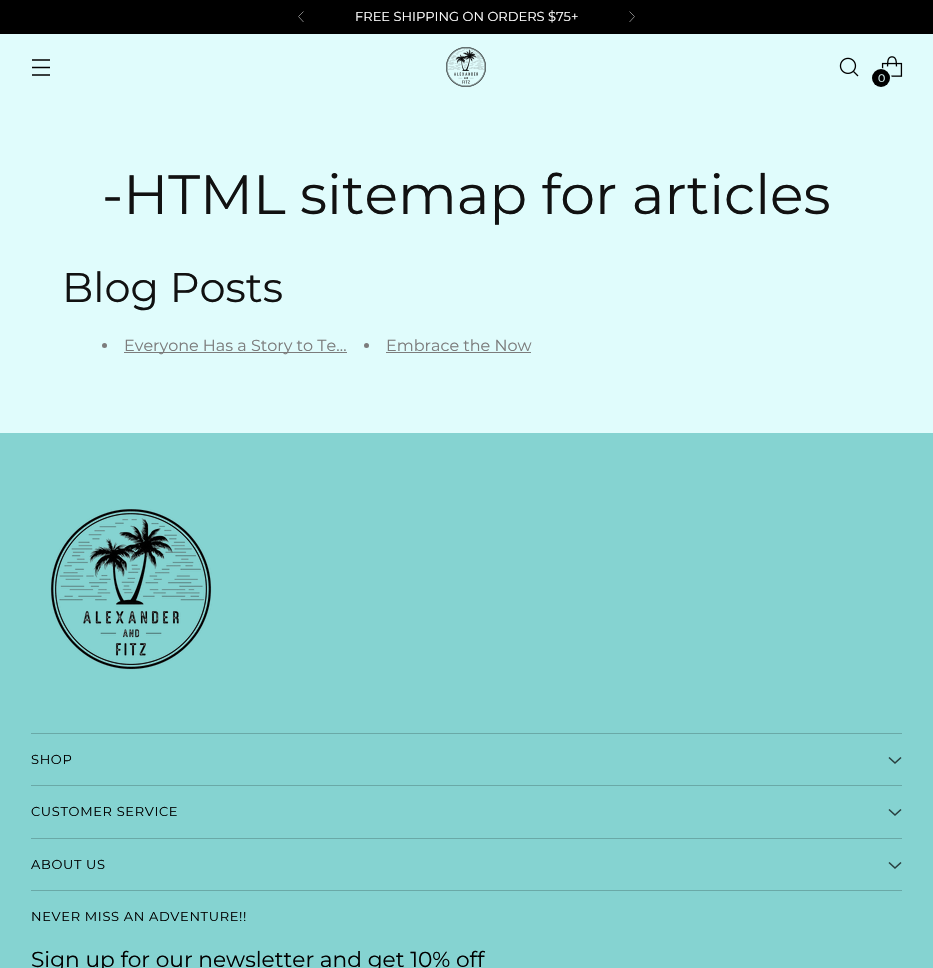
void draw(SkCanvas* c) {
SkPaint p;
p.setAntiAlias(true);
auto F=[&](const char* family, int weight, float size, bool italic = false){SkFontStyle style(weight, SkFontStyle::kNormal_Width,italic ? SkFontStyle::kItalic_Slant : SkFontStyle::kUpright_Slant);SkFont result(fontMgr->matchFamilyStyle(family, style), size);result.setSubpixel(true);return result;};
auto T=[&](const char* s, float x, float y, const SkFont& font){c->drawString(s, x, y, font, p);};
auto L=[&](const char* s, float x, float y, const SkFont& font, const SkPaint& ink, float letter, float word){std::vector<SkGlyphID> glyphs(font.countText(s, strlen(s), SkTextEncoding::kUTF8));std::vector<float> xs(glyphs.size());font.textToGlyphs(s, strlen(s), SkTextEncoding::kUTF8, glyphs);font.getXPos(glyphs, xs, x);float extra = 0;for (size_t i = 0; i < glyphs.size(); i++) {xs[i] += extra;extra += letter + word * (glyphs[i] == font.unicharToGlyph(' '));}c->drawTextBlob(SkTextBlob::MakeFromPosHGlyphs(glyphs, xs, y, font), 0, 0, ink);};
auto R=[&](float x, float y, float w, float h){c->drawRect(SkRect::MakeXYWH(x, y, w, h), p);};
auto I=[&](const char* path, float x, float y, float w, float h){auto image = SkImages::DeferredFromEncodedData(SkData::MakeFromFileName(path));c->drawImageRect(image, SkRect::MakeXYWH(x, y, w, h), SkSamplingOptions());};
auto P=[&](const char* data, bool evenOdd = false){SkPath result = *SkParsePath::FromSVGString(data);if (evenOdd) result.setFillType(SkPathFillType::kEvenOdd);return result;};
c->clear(0xffe0fcfc);
p.setColor(0xff000000);
R(0,0,933,34);
auto f1 = F("Montserrat",400,13);
p.setColor(0xffffffff);
T("FREE SHIPPING ON ORDERS $75+",355,21,f1);
p.setStroke(true);
p.setStrokeWidth(1);
p.setColor(0xff808080);
c->drawPath(P("M303.5 11.5l-5 5l5 5.5"),p);
c->drawPath(P("M629.5 22l5-5.5l-5-5"),p);
p.setStrokeWidth(1.3);
p.setColor(0xff000000);
c->drawPath(P("M32 67.5h18m-18-7.5h18m-18 15h18"),p);
I("1.png",446,47,40,40);
I("2.png",839,57,20,20);
I("3.png",881,56,22,21);
p.setStrokeWidth(2);
p.setColor(0xffe0fcfc);
c->drawCircle(881.5,78.5,9.5,p);
p.setStroke(false);
p.setColor(0xff000000);
c->drawCircle(881,78,9,p);
auto f2 = F("Montserrat",400,11);
p.setColor(0xffe0fcfc);
T("0",878,82,f2);
auto f3 = F("Montserrat",400,55.4);
p.setColor(0xff111111);
T("-HTML sitemap for articles",102,214,f3);
auto f4 = F("Montserrat",400,41.5);
T("Blog Posts",62,302,f4);
p.setColor(0xff7c7c7c);
c->drawCircle(104.5,345.5,2.5,p);
R(124,352,223,1);
auto f5 = F("Montserrat",400,16);
T("Everyone Has a Story to Te…",124,351,f5);
c->drawCircle(366.5,345.5,2.5,p);
T("Embrace the Now",386,351,f5);
R(386,352,145,1);
p.setColor(0xff85d3d1);
R(0,433,933,535);
p.setColor(0xff6aa9a7);
R(31,733,871,1);
I("4.png",50,509,162,161);
R(31,785,871,1);
p.setColor(0xff000000);
L("SHOP",31,764,f1,p,.65,0);
p.setStroke(true);
p.setStrokeWidth(1.6);
p.setColor(0xff283f3f);
c->drawPath(P("M889 757.5l6 5.5l6-5.5m-12 52l6 5.5l6-5.5"),p);
p.setStroke(false);
p.setColor(0xff6aa9a7);
R(31,838,871,1);
p.setColor(0xff000000);
L("CUSTOMER SERVICE",31,816,f1,p,.65,0);
p.setColor(0xff6aa9a7);
R(31,890,871,1);
p.setColor(0xff000000);
L("ABOUT US",31,869,f1,p,.65,0);
p.setStroke(true);
p.setColor(0xff283f3f);
c->drawPath(P("M889 862.5l6 5.5l6-5.5"),p);
p.setStroke(false);
p.setColor(0xff000000);
L("NEVER MISS AN ADVENTURE!!",31,921,f1,p,.65,0);
auto f6 = F("Montserrat",400,21.7);
T("Sign up for our newsletter and get 10% off",31,967,f6);
}
